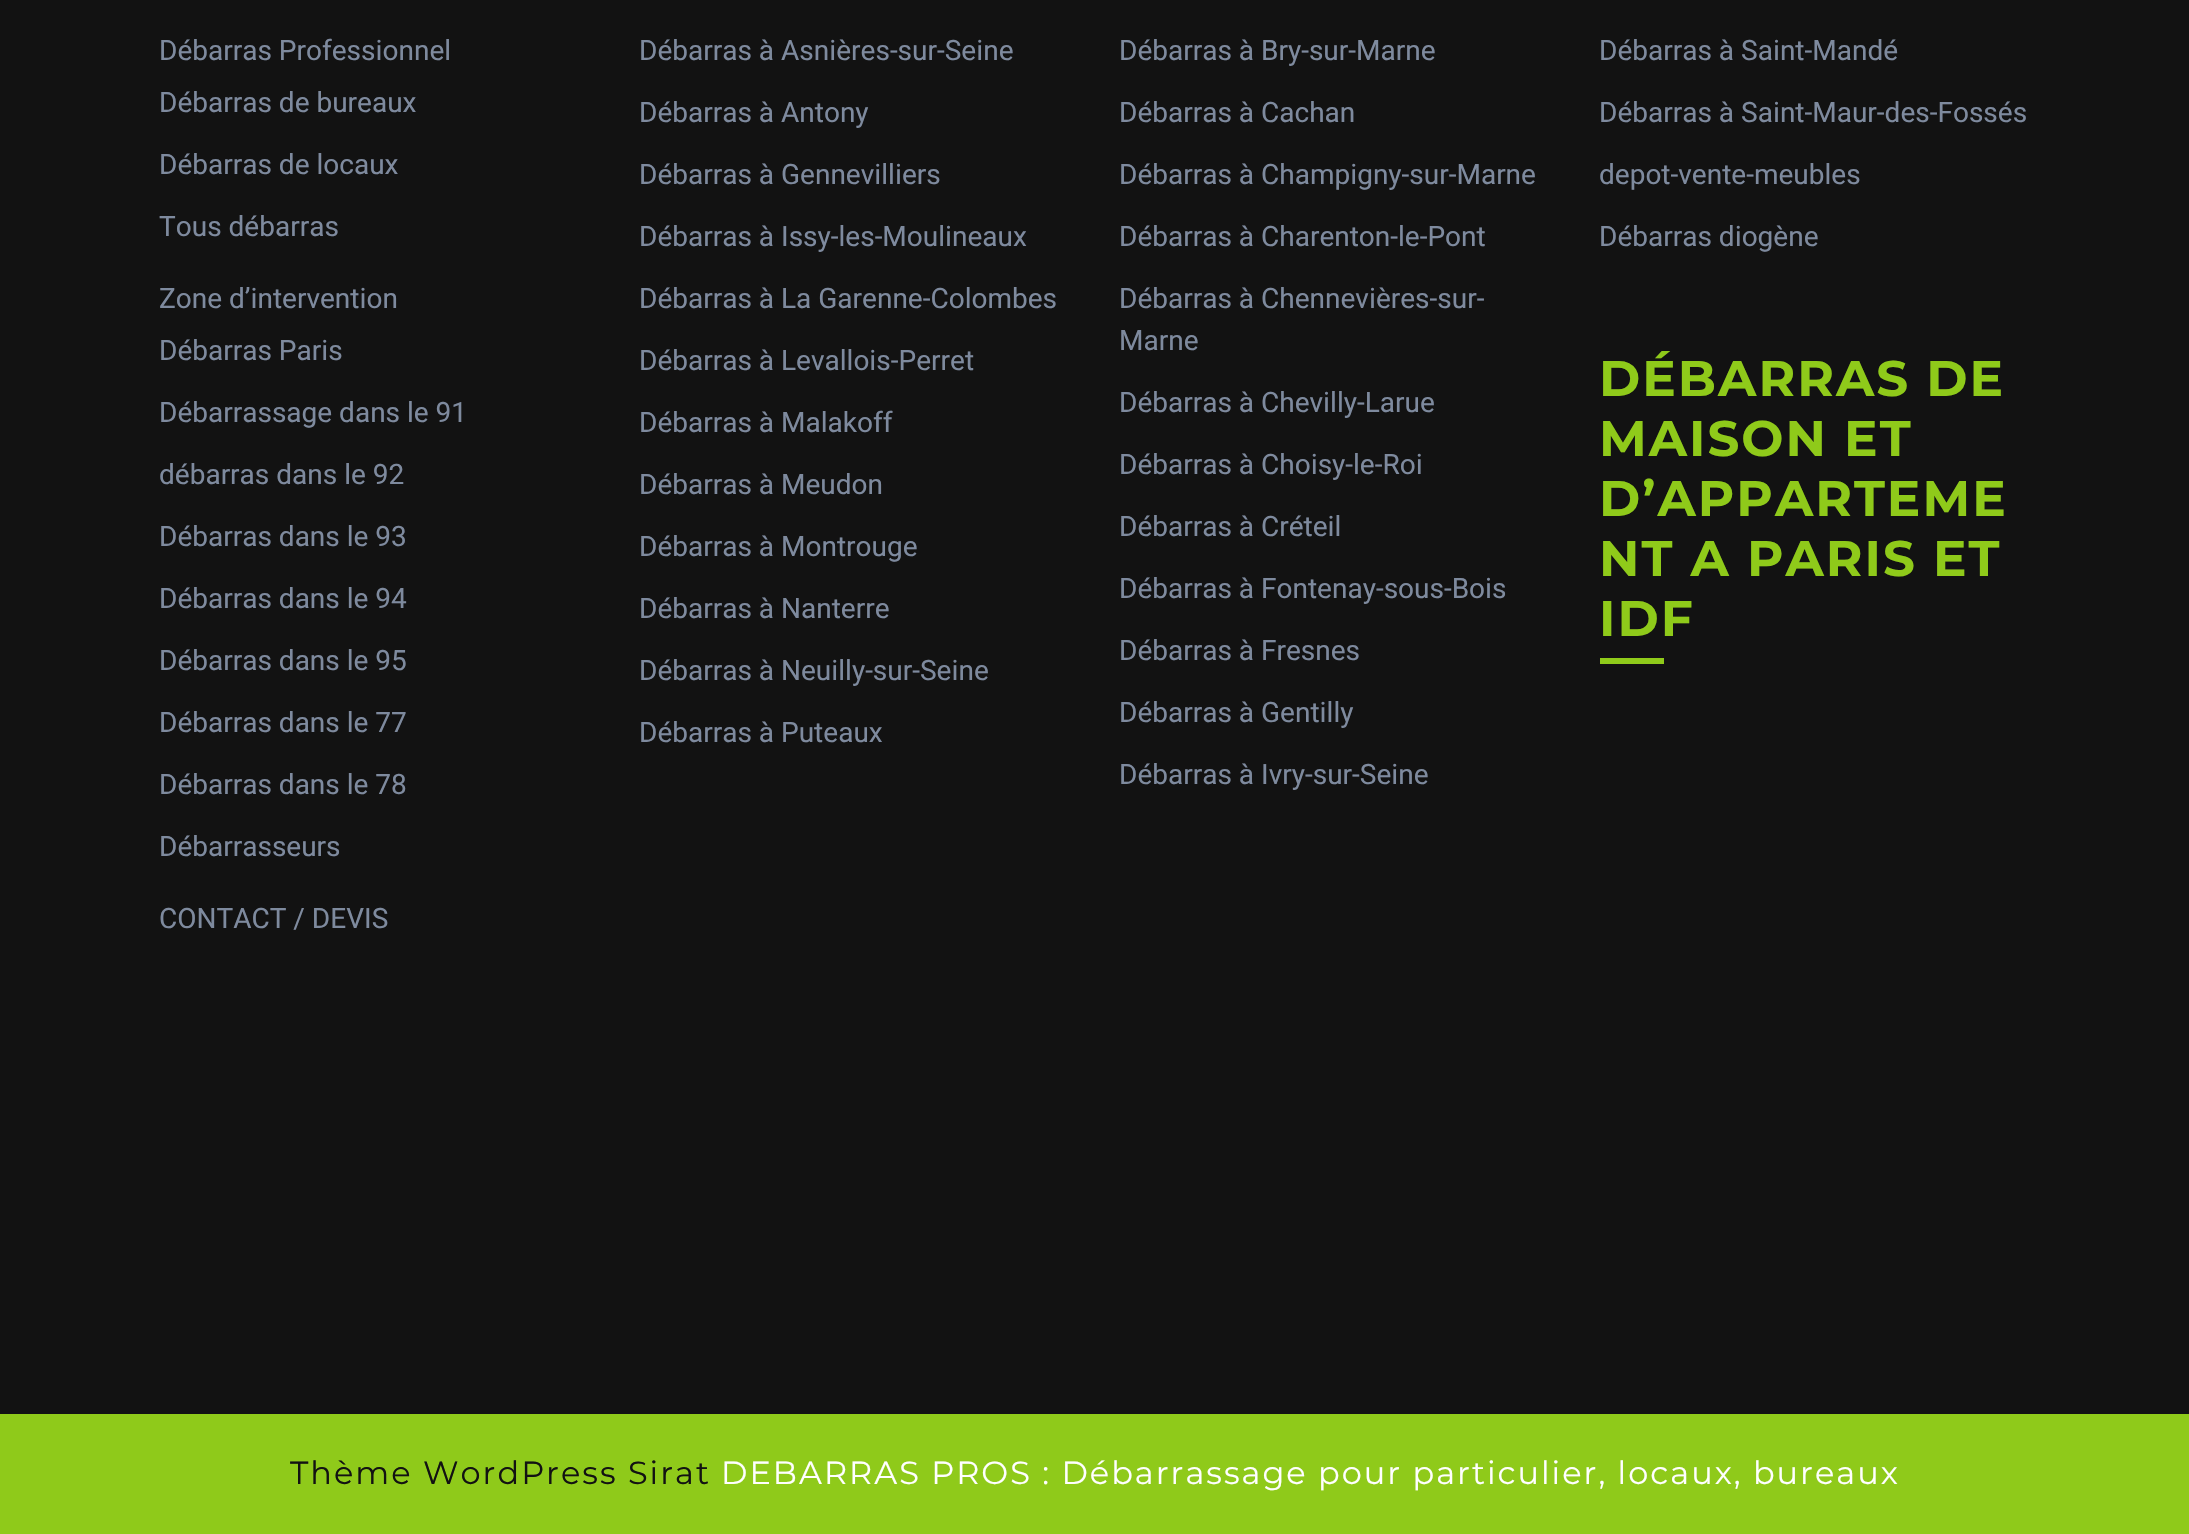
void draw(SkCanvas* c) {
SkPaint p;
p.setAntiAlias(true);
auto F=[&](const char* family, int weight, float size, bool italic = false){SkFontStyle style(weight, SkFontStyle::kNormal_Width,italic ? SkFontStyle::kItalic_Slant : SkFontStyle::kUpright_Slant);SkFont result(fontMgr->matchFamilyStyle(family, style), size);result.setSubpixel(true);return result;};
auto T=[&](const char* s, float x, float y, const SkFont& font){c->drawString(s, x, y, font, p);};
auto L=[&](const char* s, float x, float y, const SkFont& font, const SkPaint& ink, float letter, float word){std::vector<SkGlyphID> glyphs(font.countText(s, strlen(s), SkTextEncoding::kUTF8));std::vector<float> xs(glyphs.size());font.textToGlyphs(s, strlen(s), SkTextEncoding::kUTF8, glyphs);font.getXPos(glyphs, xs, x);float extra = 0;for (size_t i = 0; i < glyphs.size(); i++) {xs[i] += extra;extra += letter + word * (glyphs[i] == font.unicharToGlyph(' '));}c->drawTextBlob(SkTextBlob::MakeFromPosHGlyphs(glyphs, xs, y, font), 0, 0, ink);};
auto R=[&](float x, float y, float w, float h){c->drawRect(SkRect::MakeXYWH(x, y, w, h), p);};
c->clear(0xff121212);
auto f1 = F("Heebo",400,28);
p.setColor(0xff7e8a9e);
T("Débarras Professionnel",159,60,f1);
T("Débarras de bureaux",159,112,f1);
T("Débarras de locaux",159,174,f1);
T("Tous débarras",159,236,f1);
T("Zone d’intervention",159,308,f1);
T("Débarras Paris",159,360,f1);
T("Débarrassage dans le 91",159,422,f1);
T("débarras dans le 92",159,484,f1);
T("Débarras dans le 93",159,546,f1);
T("Débarras dans le 94",159,608,f1);
T("Débarras dans le 95",159,670,f1);
T("Débarras dans le 77",159,732,f1);
T("Débarras dans le 78",159,794,f1);
T("Débarrasseurs",159,856,f1);
T("CONTACT / DEVIS",159,928,f1);
T("Débarras à Asnières-sur-Seine",639,60,f1);
T("Débarras à Antony",639,122,f1);
T("Débarras à Gennevilliers",639,184,f1);
T("Débarras à Issy-les-Moulineaux",639,246,f1);
T("Débarras à La Garenne-Colombes",639,308,f1);
T("Débarras à Levallois-Perret",639,370,f1);
T("Débarras à Malakoff",639,432,f1);
T("Débarras à Meudon",639,494,f1);
T("Débarras à Montrouge",639,556,f1);
T("Débarras à Nanterre",639,618,f1);
T("Débarras à Neuilly-sur-Seine",639,680,f1);
T("Débarras à Puteaux",639,742,f1);
T("Débarras à Bry-sur-Marne",1119,60,f1);
T("Débarras à Cachan",1119,122,f1);
T("Débarras à Champigny-sur-Marne",1119,184,f1);
T("Débarras à Charenton-le-Pont",1119,246,f1);
T("Débarras à Chennevières-sur-",1119,308,f1);
T("Marne",1119,350,f1);
T("Débarras à Chevilly-Larue",1119,412,f1);
T("Débarras à Choisy-le-Roi",1119,474,f1);
T("Débarras à Créteil",1119,536,f1);
T("Débarras à Fontenay-sous-Bois",1119,598,f1);
T("Débarras à Fresnes",1119,660,f1);
T("Débarras à Gentilly",1119,722,f1);
T("Débarras à Ivry-sur-Seine",1119,784,f1);
T("Débarras à Saint-Mandé",1599,60,f1);
T("Débarras à Saint-Maur-des-Fossés",1599,122,f1);
T("depot-vente-meubles",1599,184,f1);
T("Débarras diogène",1599,246,f1);
auto f2 = F("Montserrat",700,50);
p.setColor(0xff8fca1a);
L("DÉBARRAS DE",1599,396,f2,p,2,0);
L("MAISON ET",1599,456,f2,p,2,0);
L("D’APPARTEME",1599,516,f2,p,2,0);
L("NT A PARIS ET",1599,576,f2,p,2,0);
L("IDF",1599,636,f2,p,2,0);
R(1600,658,64,6);
R(0,1414,2189,120);
auto f3 = F("Montserrat",400,32);
p.setColor(0xff121212);
L("Thème WordPress Sirat",290,1484,f3,p,2,0);
p.setColor(0xffffffff);
L("DEBARRAS PROS : Débarrassage pour particulier, locaux, bureaux",721,1484,f3,p,2,0);
}
